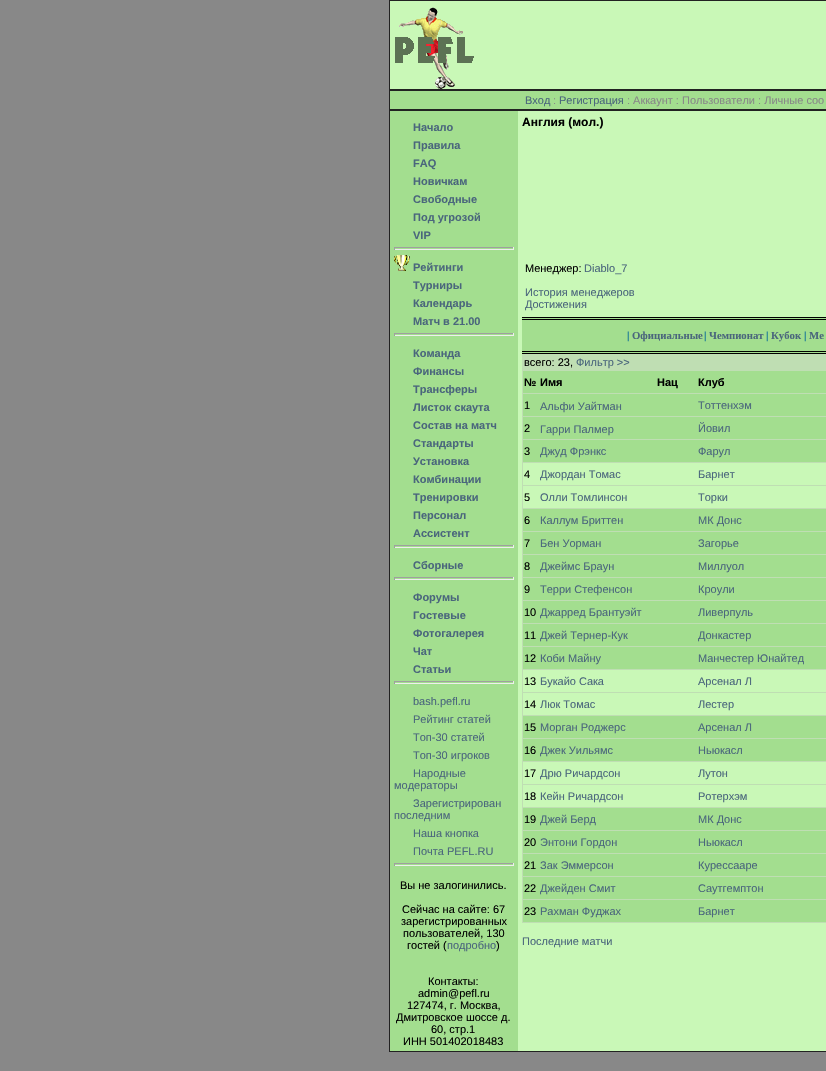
void draw(SkCanvas* c) {
SkPaint p;
p.setAntiAlias(true);
auto F=[&](const char* family, int weight, float size, bool italic = false){SkFontStyle style(weight, SkFontStyle::kNormal_Width,italic ? SkFontStyle::kItalic_Slant : SkFontStyle::kUpright_Slant);SkFont result(fontMgr->matchFamilyStyle(family, style), size);result.setSubpixel(true);return result;};
auto T=[&](const char* s, float x, float y, const SkFont& font){c->drawString(s, x, y, font, p);};
auto R=[&](float x, float y, float w, float h){c->drawRect(SkRect::MakeXYWH(x, y, w, h), p);};
auto I=[&](const char* path, float x, float y, float w, float h){auto image = SkImages::DeferredFromEncodedData(SkData::MakeFromFileName(path));c->drawImageRect(image, SkRect::MakeXYWH(x, y, w, h), SkSamplingOptions());};
c->clear(0xff888888);
p.setStroke(true);
p.setStrokeWidth(1);
p.setColor(0xff222222);
c->drawRect(SkRect::MakeXYWH(389.5,.5,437,89),p);
p.setStroke(false);
p.setColor(0xffc9f8b7);
R(390,1,436,88);
I("1.png",395,7,79,82);
p.setStroke(true);
p.setColor(0xff222222);
c->drawRect(SkRect::MakeXYWH(389.5,90.5,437,19),p);
p.setStroke(false);
p.setColor(0xffa3de8f);
R(390,91,436,18);
auto f1 = F("Liberation Sans",400,11);
p.setColor(0xff4a667c);
T("Вход",525,104,f1);
p.setColor(0xff888888);
T(":",553,104,f1);
p.setColor(0xff4a667c);
T("Регистрация",559,104,f1);
p.setColor(0xff888888);
T(": Аккаунт : Пользователи : Личные соо",627,104,f1);
p.setStroke(true);
p.setColor(0xff222222);
c->drawRect(SkRect::MakeXYWH(389.5,110.5,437,941),p);
p.setStroke(false);
p.setColor(0xffa3de8f);
R(390,111,128,940);
auto f2 = F("Liberation Sans",700,11);
p.setColor(0xff4a667c);
T("Начало",413,131,f2);
T("Правила",413,149,f2);
T("FAQ",413,167,f2);
T("Новичкам",413,185,f2);
T("Свободные",413,203,f2);
T("Под угрозой",413,221,f2);
T("VIP",413,239,f2);
p.setColor(0xff9f9f9f);
R(394,247,120,1);
p.setColor(0xffeeeeee);
R(513,247,1,3);
R(394,249,120,1);
p.setColor(0xff9f9f9f);
R(394,247,1,3);
I("2.png",394,255,16,16);
p.setColor(0xff4a667c);
T("Рейтинги",413,271,f2);
T("Турниры",413,289,f2);
T("Календарь",413,307,f2);
T("Матч в 21.00",413,325,f2);
p.setColor(0xff9f9f9f);
R(394,333,120,1);
p.setColor(0xffeeeeee);
R(513,333,1,3);
R(394,335,120,1);
p.setColor(0xff9f9f9f);
R(394,333,1,3);
p.setColor(0xff4a667c);
T("Команда",413,357,f2);
T("Финансы",413,375,f2);
T("Трансферы",413,393,f2);
T("Листок скаута",413,411,f2);
T("Состав на матч",413,429,f2);
T("Стандарты",413,447,f2);
T("Установка",413,465,f2);
T("Комбинации",413,483,f2);
T("Тренировки",413,501,f2);
T("Персонал",413,519,f2);
T("Ассистент",413,537,f2);
p.setColor(0xff9f9f9f);
R(394,545,120,1);
p.setColor(0xffeeeeee);
R(513,545,1,3);
R(394,547,120,1);
p.setColor(0xff9f9f9f);
R(394,545,1,3);
p.setColor(0xff4a667c);
T("Сборные",413,569,f2);
p.setColor(0xff9f9f9f);
R(394,577,120,1);
p.setColor(0xffeeeeee);
R(513,577,1,3);
R(394,579,120,1);
p.setColor(0xff9f9f9f);
R(394,577,1,3);
p.setColor(0xff4a667c);
T("Форумы",413,601,f2);
T("Гостевые",413,619,f2);
T("Фотогалерея",413,637,f2);
T("Чат",413,655,f2);
T("Статьи",413,673,f2);
p.setColor(0xff9f9f9f);
R(394,681,120,1);
p.setColor(0xffeeeeee);
R(513,681,1,3);
R(394,683,120,1);
p.setColor(0xff9f9f9f);
R(394,681,1,3);
p.setColor(0xff4a667c);
T("bash.pefl.ru",413,705,f1);
T("Рейтинг статей",413,723,f1);
T("Топ-30 статей",413,741,f1);
T("Топ-30 игроков",413,759,f1);
T("Народные",413,777,f1);
T("модераторы",394,789,f1);
T("Зарегистрирован",413,807,f1);
T("последним",394,819,f1);
T("Наша кнопка",413,837,f1);
T("Почта PEFL.RU",413,855,f1);
p.setColor(0xff9f9f9f);
R(394,863,120,1);
p.setColor(0xffeeeeee);
R(513,863,1,3);
R(394,865,120,1);
p.setColor(0xff9f9f9f);
R(394,863,1,3);
p.setColor(0xff000000);
T("Вы не залогинились.",400,889,f1);
T("Сейчас на сайте: 67",402,913,f1);
T("зарегистрированных",401,925,f1);
T("пользователей, 130",403,937,f1);
T("гостей (",407,949,f1);
p.setColor(0xff4a667c);
T("подробно",447,949,f1);
p.setColor(0xff000000);
T(")",496,949,f1);
T("Контакты:",428,985,f1);
T("admin@pefl.ru",418,997,f1);
T("127474, г. Москва,",407,1009,f1);
T("Дмитровское шоссе д.",396,1021,f1);
T("60, стр.1",431,1033,f1);
T("ИНН 501402018483",403,1045,f1);
p.setColor(0xffc9f8b7);
R(518,111,308,940);
auto f3 = F("Liberation Sans",700,12);
p.setColor(0xff000000);
T("Англия (мол.)",522,126,f3);
T("Менеджер:",525,272,f1);
p.setColor(0xff4a667c);
T("Diablo_7",584,272,f1);
T("История менеджеров",525,296,f1);
T("Достижения",525,308,f1);
p.setColor(0xffa3de8f);
R(522,318,304,35);
p.setColor(0xff000000);
R(522,317,304,1);
R(522,319,304,1);
R(522,351,304,1);
R(522,353,304,1);
auto f4 = F("Liberation Serif",700,10.75);
p.setColor(0xff006699);
T("|",627,339,f4);
p.setColor(0xff4a667c);
T("Официальные",632,339,f4);
p.setColor(0xff006699);
T("|",704,339,f4);
p.setColor(0xff4a667c);
T("Чемпионат",709,339,f4);
p.setColor(0xff006699);
T("|",766,339,f4);
p.setColor(0xff4a667c);
T("Кубок",771,339,f4);
p.setColor(0xff006699);
T("|",804,339,f4);
p.setColor(0xff4a667c);
T("Ме",809,339,f4);
p.setColor(0xffbfdeb3);
R(522,354,304,569);
p.setColor(0xff000000);
T("всего: 23,",524,366,f1);
p.setColor(0xff4a667c);
T("Фильтр >>",576,366,f1);
p.setColor(0xffa3de8f);
R(523,371,303,22);
p.setColor(0xff000000);
T("№",524,386,f2);
T("Имя",540,386,f2);
T("Нац",657,386,f2);
T("Клуб",698,386,f2);
p.setColor(0xffa3de8f);
R(523,394,303,22);
p.setColor(0xff000000);
T("1",524,409,f1);
p.setColor(0xff4a667c);
T("Альфи Уайтман",540,410,f1);
T("Тоттенхэм",698,409,f1);
p.setColor(0xffa3de8f);
R(523,417,303,22);
p.setColor(0xff000000);
T("2",524,432,f1);
p.setColor(0xff4a667c);
T("Гарри Палмер",540,433,f1);
T("Йовил",698,432,f1);
p.setColor(0xffa3de8f);
R(523,440,303,22);
p.setColor(0xff000000);
T("3",524,455,f1);
p.setColor(0xff4a667c);
T("Джуд Фрэнкс",540,455,f1);
T("Фарул",698,455,f1);
p.setColor(0xffc9f8b7);
R(523,463,303,22);
p.setColor(0xff000000);
T("4",524,478,f1);
p.setColor(0xff4a667c);
T("Джордан Томас",540,478,f1);
T("Барнет",698,478,f1);
p.setColor(0xffc9f8b7);
R(523,486,303,22);
p.setColor(0xff000000);
T("5",524,501,f1);
p.setColor(0xff4a667c);
T("Олли Томлинсон",540,501,f1);
T("Торки",698,501,f1);
p.setColor(0xffa3de8f);
R(523,509,303,22);
p.setColor(0xff000000);
T("6",524,524,f1);
p.setColor(0xff4a667c);
T("Каллум Бриттен",540,524,f1);
T("МК Донс",698,524,f1);
p.setColor(0xffa3de8f);
R(523,532,303,22);
p.setColor(0xff000000);
T("7",524,547,f1);
p.setColor(0xff4a667c);
T("Бен Уорман",540,547,f1);
T("Загорье",698,547,f1);
p.setColor(0xffa3de8f);
R(523,555,303,22);
p.setColor(0xff000000);
T("8",524,570,f1);
p.setColor(0xff4a667c);
T("Джеймс Браун",540,570,f1);
T("Миллуол",698,570,f1);
p.setColor(0xffa3de8f);
R(523,578,303,22);
p.setColor(0xff000000);
T("9",524,593,f1);
p.setColor(0xff4a667c);
T("Терри Стефенсон",540,593,f1);
T("Кроули",698,593,f1);
p.setColor(0xffa3de8f);
R(523,601,303,22);
p.setColor(0xff000000);
T("10",524,616,f1);
p.setColor(0xff4a667c);
T("Джарред Брантуэйт",540,616,f1);
T("Ливерпуль",698,616,f1);
p.setColor(0xffa3de8f);
R(523,624,303,22);
p.setColor(0xff000000);
T("11",524,639,f1);
p.setColor(0xff4a667c);
T("Джей Тернер-Кук",540,639,f1);
T("Донкастер",698,639,f1);
p.setColor(0xffa3de8f);
R(523,647,303,22);
p.setColor(0xff000000);
T("12",524,662,f1);
p.setColor(0xff4a667c);
T("Коби Майну",540,662,f1);
T("Манчестер Юнайтед",698,662,f1);
p.setColor(0xffc9f8b7);
R(523,670,303,22);
p.setColor(0xff000000);
T("13",524,685,f1);
p.setColor(0xff4a667c);
T("Букайо Сака",540,685,f1);
T("Арсенал Л",698,685,f1);
p.setColor(0xffc9f8b7);
R(523,693,303,22);
p.setColor(0xff000000);
T("14",524,708,f1);
p.setColor(0xff4a667c);
T("Люк Томас",540,708,f1);
T("Лестер",698,708,f1);
p.setColor(0xffa3de8f);
R(523,716,303,22);
p.setColor(0xff000000);
T("15",524,731,f1);
p.setColor(0xff4a667c);
T("Морган Роджерс",540,731,f1);
T("Арсенал Л",698,731,f1);
p.setColor(0xffa3de8f);
R(523,739,303,22);
p.setColor(0xff000000);
T("16",524,754,f1);
p.setColor(0xff4a667c);
T("Джек Уильямс",540,754,f1);
T("Ньюкасл",698,754,f1);
p.setColor(0xffc9f8b7);
R(523,762,303,22);
p.setColor(0xff000000);
T("17",524,777,f1);
p.setColor(0xff4a667c);
T("Дрю Ричардсон",540,777,f1);
T("Лутон",698,777,f1);
p.setColor(0xffc9f8b7);
R(523,785,303,22);
p.setColor(0xff000000);
T("18",524,800,f1);
p.setColor(0xff4a667c);
T("Кейн Ричардсон",540,800,f1);
T("Ротерхэм",698,800,f1);
p.setColor(0xffa3de8f);
R(523,808,303,22);
p.setColor(0xff000000);
T("19",524,823,f1);
p.setColor(0xff4a667c);
T("Джей Берд",540,823,f1);
T("МК Донс",698,823,f1);
p.setColor(0xffa3de8f);
R(523,831,303,22);
p.setColor(0xff000000);
T("20",524,846,f1);
p.setColor(0xff4a667c);
T("Энтони Гордон",540,846,f1);
T("Ньюкасл",698,846,f1);
p.setColor(0xffa3de8f);
R(523,854,303,22);
p.setColor(0xff000000);
T("21",524,869,f1);
p.setColor(0xff4a667c);
T("Зак Эммерсон",540,869,f1);
T("Курессааре",698,869,f1);
p.setColor(0xffa3de8f);
R(523,877,303,22);
p.setColor(0xff000000);
T("22",524,892,f1);
p.setColor(0xff4a667c);
T("Джейден Смит",540,892,f1);
T("Саутгемптон",698,892,f1);
p.setColor(0xffa3de8f);
R(523,900,303,22);
p.setColor(0xff000000);
T("23",524,915,f1);
p.setColor(0xff4a667c);
T("Рахман Фуджах",540,915,f1);
T("Барнет",698,915,f1);
T("Последние матчи",522,945,f1);
}
